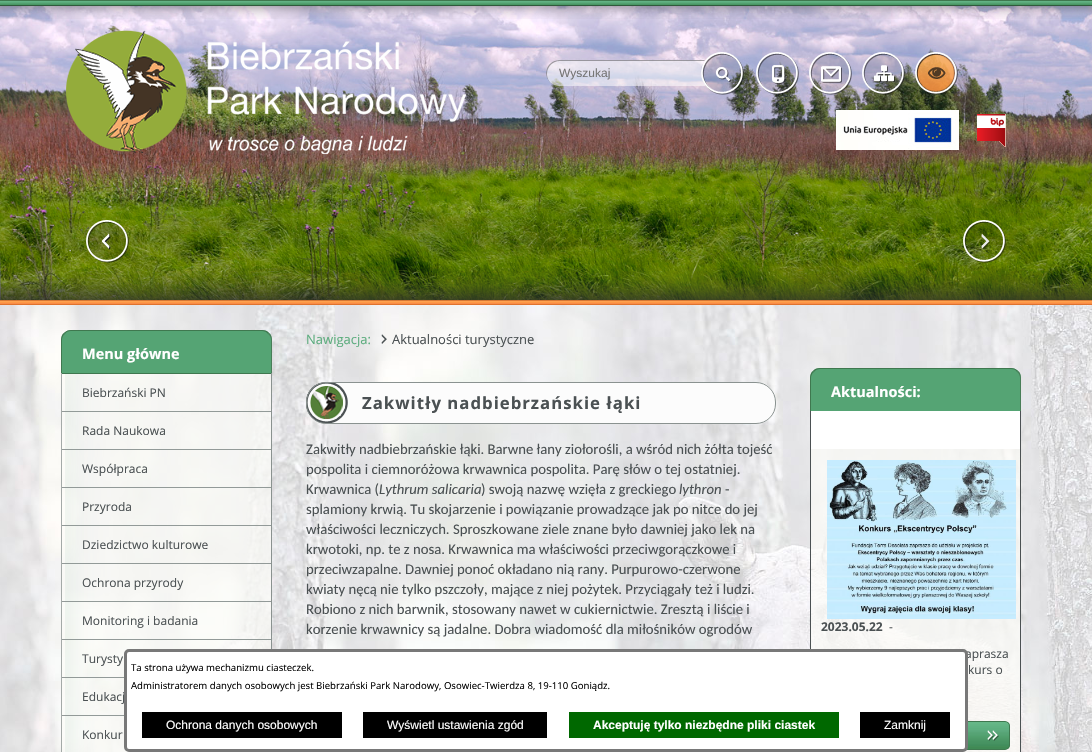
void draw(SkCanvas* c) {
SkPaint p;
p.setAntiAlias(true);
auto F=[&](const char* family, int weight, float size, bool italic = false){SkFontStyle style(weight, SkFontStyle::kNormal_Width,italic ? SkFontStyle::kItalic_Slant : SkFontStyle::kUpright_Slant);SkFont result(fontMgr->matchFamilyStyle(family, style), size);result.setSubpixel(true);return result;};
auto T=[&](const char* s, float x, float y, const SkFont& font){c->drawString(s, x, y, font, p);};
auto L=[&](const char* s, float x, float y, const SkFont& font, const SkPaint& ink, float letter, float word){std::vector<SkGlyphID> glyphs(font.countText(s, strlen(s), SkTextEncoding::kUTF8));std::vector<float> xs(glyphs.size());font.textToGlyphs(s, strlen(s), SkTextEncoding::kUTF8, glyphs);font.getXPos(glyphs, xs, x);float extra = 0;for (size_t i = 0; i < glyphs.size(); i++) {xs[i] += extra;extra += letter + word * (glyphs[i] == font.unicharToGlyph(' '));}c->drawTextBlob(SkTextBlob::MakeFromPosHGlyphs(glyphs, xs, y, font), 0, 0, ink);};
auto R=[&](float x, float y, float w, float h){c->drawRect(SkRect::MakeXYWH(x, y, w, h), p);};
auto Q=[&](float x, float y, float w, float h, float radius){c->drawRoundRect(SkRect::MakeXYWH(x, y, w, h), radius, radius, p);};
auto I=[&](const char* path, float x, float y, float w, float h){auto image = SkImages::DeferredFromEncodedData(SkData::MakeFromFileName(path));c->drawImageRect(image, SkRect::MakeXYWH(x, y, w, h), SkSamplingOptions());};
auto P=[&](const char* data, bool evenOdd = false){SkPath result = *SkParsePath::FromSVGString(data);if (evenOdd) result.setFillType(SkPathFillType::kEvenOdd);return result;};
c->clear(0xffffffff);
I("1.png",0,6,1092,294);
I("2.png",0,0,1092,19);
I("3.png",0,268,1092,32);
I("4.png",66,30,400,124);
I("5.png",546,60,160,26);
auto f1 = F("Liberation Sans",400,12);
p.setColor(0xff757575);
T("Wyszukaj",559,77,f1);
I("6.png",701,52,43,43);
I("7.png",715,67,16,15);
I("8.png",756,52,43,43);
I("9.png",772,65,14,19);
I("10.png",809,52,43,43);
I("11.png",821,66,21,17);
I("12.png",862,52,43,43);
I("13.png",874,65,21,18);
I("14.png",915,52,43,43);
I("15.png",836,110,123,40);
I("16.png",977,114,29,33);
I("17.png",86,220,43,43);
I("18.png",102,233,9,17);
I("19.png",963,220,43,43);
I("20.png",981,233,9,17);
I("21.png",0,300,1092,5);
I("22.png",0,305,1092,447);
I("23.png",61,330,211,43);
p.setColor(0xff3f784f);
c->drawPath(P("M71 330c-3 0-5 1-7 3l1 1c1-2 3-3 6-3h191c2 0 5 1 6 3l1-1c-1-2-4-3-7-3z"),p);
p.setColor(0xff487e58);
c->drawPath(P("M271 373h1v-33c0-3-1-6-3-7l-1 1c2 1 3 4 3 6z"),p);
p.setColor(0xff3f784f);
c->drawPath(P("M61 373h1v-33c0-2 1-5 3-6l-1-1c-2 1-3 4-3 7z"),p);
auto f2 = F("Open Sans",700,14.5);
p.setColor(0xffffffff);
T("Menu główne",82,359,f2);
I("24.png",62,374,209,378);
p.setColor(0xff3f784f);
R(61,373,211,1);
p.setColor(0xff8a9290);
R(271,373,1,276);
p.setColor(0xffa4aaa8);
R(61,373,1,379);
p.setColor(0xff929a98);
R(62,411,209,1);
auto f3 = F("Open Sans",400,12);
p.setColor(0xff4b5153);
T("Biebrzański PN",82,397,f3);
p.setColor(0xff929a98);
R(62,449,209,1);
p.setColor(0xff4b5153);
T("Rada Naukowa",82,435,f3);
p.setColor(0xff929a98);
R(62,487,209,1);
p.setColor(0xff4b5153);
T("Współpraca",82,473,f3);
p.setColor(0xff929a98);
R(62,525,209,1);
p.setColor(0xff4b5153);
T("Przyroda",82,511,f3);
p.setColor(0xff929a98);
R(62,563,209,1);
p.setColor(0xff4b5153);
T("Dziedzictwo kulturowe",82,549,f3);
p.setColor(0xff929a98);
R(62,601,209,1);
p.setColor(0xff4b5153);
T("Ochrona przyrody",82,587,f3);
p.setColor(0xff929a98);
R(62,639,209,1);
p.setColor(0xff4b5153);
T("Monitoring i badania",82,625,f3);
p.setColor(0xff929a98);
R(62,677,62,1);
p.setColor(0xff4b5153);
T("Turysty",82,663,f3);
p.setColor(0xff929a98);
R(62,715,62,1);
p.setColor(0xff4b5153);
T("Edukacj",82,701,f3);
T("Konkur",82,739,f3);
auto f4 = F("Open Sans",400,13);
p.setColor(0xff5ead7f);
T("Nawigacja:",306,344,f4);
I("25.png",381,334,6,10);
p.setColor(0xff4b5153);
T("Aktualności turystyczne",392,344,f4);
p.setColor(0xfffcfcfc);
Q(306,382,470,42,20);
I("26.png",306,382,42,42);
p.setStroke(true);
p.setStrokeWidth(1);
p.setColor(0xff8a9290);
c->drawRoundRect(SkRect::MakeXYWH(306.5,382.5,469,41),19.5,19.5,p);
auto f5 = F("Open Sans",700,16.75);
p.setStroke(false);
p.setColor(0xff4b5153);
L("Zakwitły nadbiebrzańskie łąki",362,409,f5,p,1,0);
auto f6 = F("Carlito",400,14.7);
T("Zakwitły nadbiebrzańskie łąki. Barwne łany ziołorośli, a wśród nich żółta tojeść",306,454,f6);
T("pospolita i ciemnoróżowa krwawnica pospolita. Parę słów o tej ostatniej.",306,474,f6);
T("Krwawnica (",306,494,f6);
auto f7 = F("Carlito",400,14.7,true);
T("Lythrum salicaria",379,494,f7);
T(") swoją nazwę wzięła z greckiego",481,494,f6);
T("lythron",679,494,f7);
T("-",725,494,f6);
T("splamiony krwią. Tu skojarzenie i powiązanie prowadzące jak po nitce do jej",306,514,f6);
T("właściwości leczniczych. Sproszkowane ziele znane było dawniej jako lek na",306,534,f6);
T("krwotoki, np. te z nosa. Krwawnica ma właściwości przeciwgorączkowe i",306,554,f6);
T("przeciwzapalne. Dawniej ponoć okładano nią rany. Purpurowo-czerwone",306,574,f6);
T("kwiaty nęcą nie tylko pszczoły, mające z niej pożytek. Przyciągały też i ludzi.",306,594,f6);
T("Robiono z nich barwnik, stosowany nawet w cukiernictwie. Zresztą i liście i",306,614,f6);
T("korzenie krwawnicy są jadalne. Dobra wiadomość dla miłośników ogrodów",306,634,f6);
I("27.png",810,368,211,43);
p.setColor(0xff3f784f);
c->drawPath(P("M820 368c-3 0-6 1-7 3l1 1c1-2 4-3 6-3h191c3 0 5 1 6 3l1-1c-2-2-4-3-7-3z"),p);
p.setColor(0xff487e58);
c->drawPath(P("M1020 411h1v-33c0-3-1-6-3-7l-1 1c2 1 3 4 3 6z"),p);
p.setColor(0xff3f784f);
c->drawPath(P("M810 411h1v-33c0-2 1-5 3-6l-1-1c-2 1-3 4-3 7z"),p);
p.setColor(0xffffffff);
T("Aktualności:",831,397,f2);
p.setColor(0xb0fcfcf8);
R(811,449,209,303);
p.setColor(0xff4b5153);
R(1020,411,1,341);
R(810,411,1,238);
p.setColor(0xffffffff);
R(811,411,209,38);
I("28.png",827,460,189,159);
auto f8 = F("Open Sans",700,12);
p.setColor(0xff4b5153);
T("2023.05.22",821,631,f8);
T("-",889,631,f3);
T("aprasza",965,658,f3);
T("kurs o",968,674,f3);
I("29.png",967,722,43,27);
p.setStroke(true);
p.setColor(0xff3f784f);
c->drawRoundRect(SkRect::MakeXYWH(821.5,721.5,188,28),4.5,4.5,p);
I("30.png",987,730,12,11);
p.setStroke(false);
p.setColor(0xffffffff);
c->drawRoundRect(SkRect::MakeXYWH(125.5,650.5,841,100),3.5,3.5,p);
p.setStroke(true);
p.setStrokeWidth(3);
p.setColor(0xff787878);
c->drawRoundRect(SkRect::MakeXYWH(125.5,650.5,841,100),3.5,3.5,p);
auto f9 = F("Open Sans",400,9.6);
p.setStroke(false);
p.setColor(0xff000000);
T("Ta strona używa mechanizmu ciasteczek.",131,671,f9);
T("Administratorem danych osobowych jest Biebrzański Park Narodowy, Osowiec-Twierdza 8, 19-110 Goniądz.",131,689,f9);
R(142,712,200,26);
p.setColor(0xffffffff);
T("Ochrona danych osobowych",166,729,f1);
p.setColor(0xff000000);
R(363,712,184,26);
p.setColor(0xffffffff);
T("Wyświetl ustawienia zgód",387,729,f1);
p.setColor(0xff006800);
R(569,712,270,26);
auto f10 = F("Liberation Sans",700,12);
p.setColor(0xffffffff);
T("Akceptuję tylko niezbędne pliki ciastek",593,729,f10);
p.setColor(0xff000000);
R(860,712,90,26);
p.setColor(0xffffffff);
T("Zamknij",884,729,f1);
}
